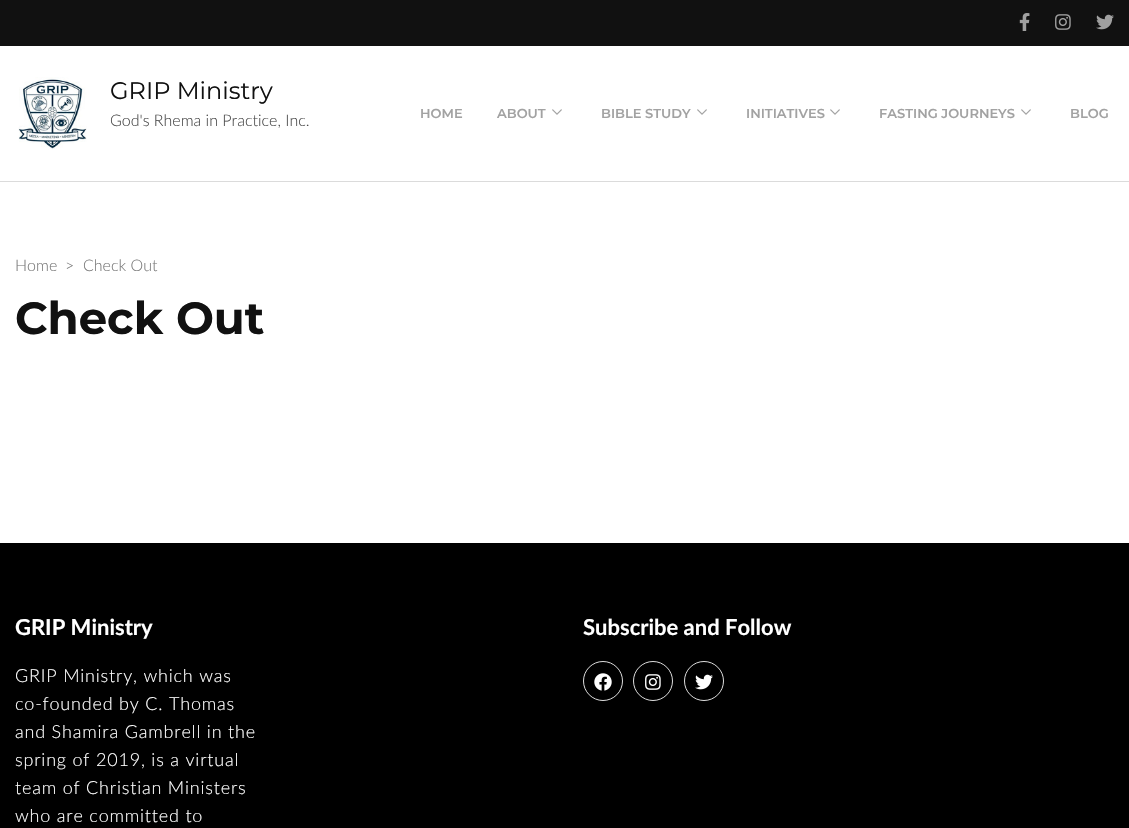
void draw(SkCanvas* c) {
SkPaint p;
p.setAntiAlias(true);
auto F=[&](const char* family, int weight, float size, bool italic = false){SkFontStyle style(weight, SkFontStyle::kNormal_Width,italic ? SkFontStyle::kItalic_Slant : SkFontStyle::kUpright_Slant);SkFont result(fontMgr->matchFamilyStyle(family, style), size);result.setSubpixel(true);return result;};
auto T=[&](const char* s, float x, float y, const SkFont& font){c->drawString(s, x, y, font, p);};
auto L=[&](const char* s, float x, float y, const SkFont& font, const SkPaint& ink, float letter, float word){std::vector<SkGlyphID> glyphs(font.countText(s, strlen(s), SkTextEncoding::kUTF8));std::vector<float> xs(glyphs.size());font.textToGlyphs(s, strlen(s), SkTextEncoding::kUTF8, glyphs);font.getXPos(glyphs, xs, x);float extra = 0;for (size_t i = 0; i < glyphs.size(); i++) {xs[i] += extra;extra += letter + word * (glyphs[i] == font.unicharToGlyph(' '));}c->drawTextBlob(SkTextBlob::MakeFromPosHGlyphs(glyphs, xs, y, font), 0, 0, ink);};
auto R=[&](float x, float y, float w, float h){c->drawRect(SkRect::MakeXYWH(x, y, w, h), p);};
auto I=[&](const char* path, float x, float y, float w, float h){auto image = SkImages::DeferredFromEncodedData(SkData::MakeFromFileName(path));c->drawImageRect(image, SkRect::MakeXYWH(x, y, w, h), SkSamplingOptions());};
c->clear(0xffffffff);
p.setColor(0xff111111);
R(0,0,1129,46);
I("1.png",1019,13,11,18);
I("2.png",1055,14,16,16);
I("3.png",1096,14,18,16);
p.setColor(0xffdbdbdb);
R(0,181,1129,1);
I("4.png",18,77,69,73);
auto f1 = F("Montserrat",400,24);
p.setColor(0xff111111);
T("GRIP Ministry",110,99,f1);
auto f2 = F("Lato",300,16);
p.setColor(0xff4a4a4a);
T("God's Rhema in Practice, Inc.",110,126,f2);
auto f3 = F("Montserrat",600,13);
p.setColor(0xffa2a2a2);
T("HOME",420,118,f3);
T("ABOUT",497,118,f3);
I("5.png",552,109,10,6);
T("BIBLE STUDY",601,118,f3);
I("5.png",697,109,10,6);
T("INITIATIVES",746,118,f3);
I("5.png",830,109,10,6);
T("FASTING JOURNEYS",879,118,f3);
I("5.png",1021,109,10,6);
T("BLOG",1070,118,f3);
p.setColor(0xff7b7b7b);
T("Home",15,271,f2);
T(">",65,271,f2);
T("Check Out",83,271,f2);
auto f4 = F("Montserrat",700,45);
p.setColor(0xff111111);
T("Check Out",15,334,f4);
p.setColor(0xff000000);
R(0,543,1129,285);
auto f5 = F("Lato",700,22);
p.setColor(0xffffffff);
T("GRIP Ministry",15,635,f5);
auto f6 = F("Lato",300,18);
L("GRIP Ministry, which was",15,682,f6,p,.8,0);
L("co-founded by C. Thomas",15,710,f6,p,.8,0);
L("and Shamira Gambrell in the",15,738,f6,p,.8,0);
L("spring of 2019, is a virtual",15,766,f6,p,.8,0);
L("team of Christian Ministers",15,794,f6,p,.8,0);
L("who are committed to",15,822,f6,p,.8,0);
T("Subscribe and Follow",583,635,f5);
p.setStroke(true);
p.setStrokeWidth(1);
p.setColor(0xffdddddd);
c->drawCircle(603,681,19.5,p);
I("6.png",594,673,18,18);
c->drawCircle(653,681,19.5,p);
I("7.png",645,674,16,16);
c->drawCircle(704,681,19.5,p);
I("8.png",695,674,18,16);
}
